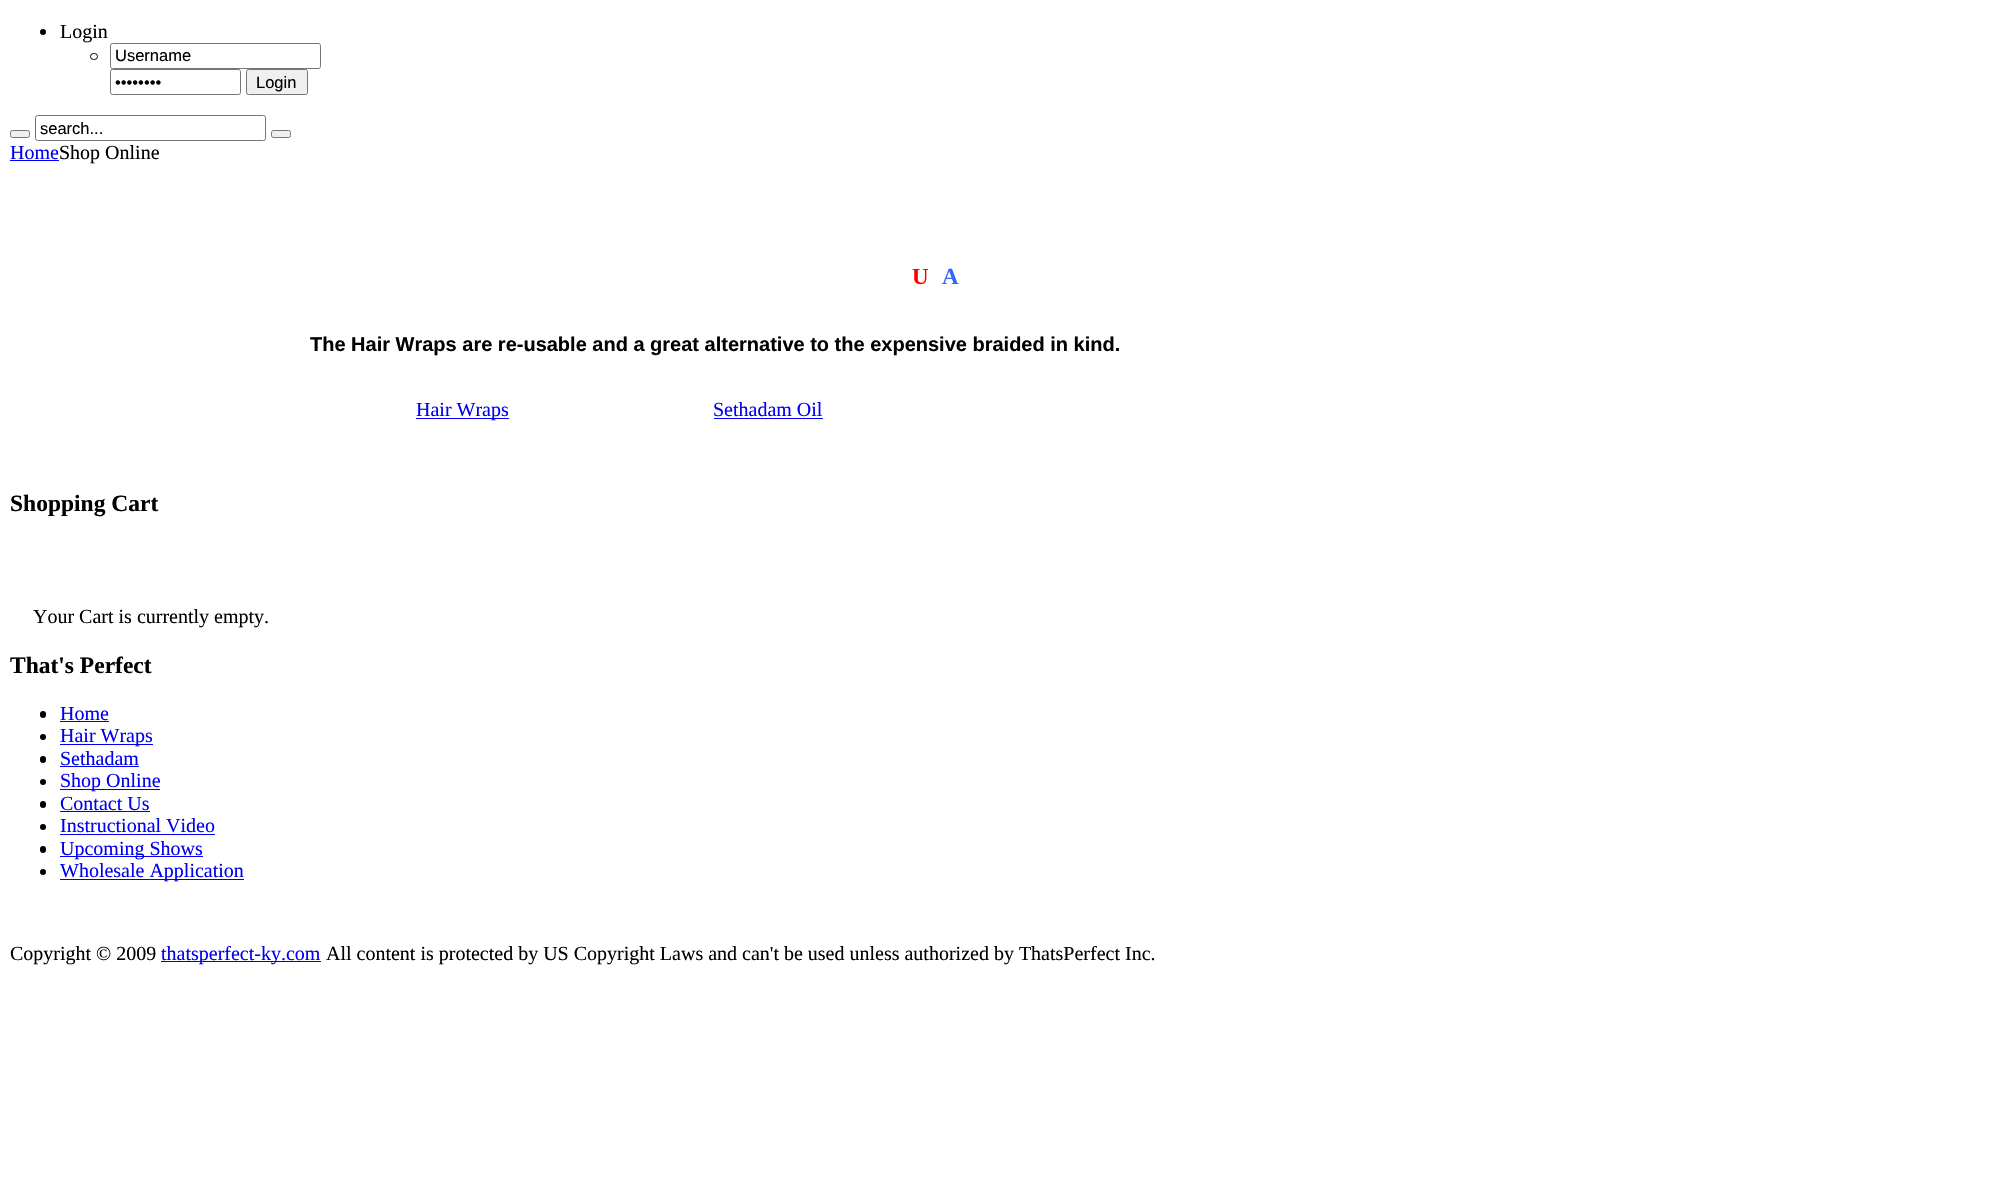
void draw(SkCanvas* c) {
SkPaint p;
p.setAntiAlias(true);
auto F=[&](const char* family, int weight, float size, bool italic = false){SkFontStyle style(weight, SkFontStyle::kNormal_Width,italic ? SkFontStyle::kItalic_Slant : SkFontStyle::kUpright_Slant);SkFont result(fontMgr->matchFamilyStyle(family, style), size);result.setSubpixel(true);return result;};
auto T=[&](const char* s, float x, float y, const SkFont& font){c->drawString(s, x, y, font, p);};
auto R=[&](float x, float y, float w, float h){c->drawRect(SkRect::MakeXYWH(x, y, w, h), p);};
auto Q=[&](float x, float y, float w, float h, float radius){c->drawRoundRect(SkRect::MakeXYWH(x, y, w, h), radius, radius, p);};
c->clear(0xffffffff);
p.setColor(0xff000000);
c->drawCircle(43,32,3,p);
auto f1 = F("Liberation Serif",400,20);
T("Login",60,38,f1);
p.setStroke(true);
p.setStrokeWidth(1);
c->drawRoundRect(SkRect::MakeXYWH(90.5,53.5,7,6),3,3,p);
p.setColor(0xff767676);
c->drawRoundRect(SkRect::MakeXYWH(110.5,43.5,210,25),2,2,p);
auto f2 = F("Liberation Sans",400,16.5);
p.setStroke(false);
p.setColor(0xff000000);
T("Username",115,61,f2);
p.setStroke(true);
p.setColor(0xff767676);
c->drawRoundRect(SkRect::MakeXYWH(110.5,69.5,130,25),2,2,p);
p.setStroke(false);
p.setColor(0xff000000);
T("••••••••",115,88,f2);
p.setColor(0xffefefef);
c->drawRoundRect(SkRect::MakeXYWH(246.5,69.5,61,25),2,2,p);
p.setStroke(true);
p.setColor(0xff767676);
c->drawRoundRect(SkRect::MakeXYWH(246.5,69.5,61,25),2,2,p);
p.setStroke(false);
p.setColor(0xff000000);
T("Login",256,88,f2);
p.setColor(0xffefefef);
c->drawRoundRect(SkRect::MakeXYWH(10.5,130.5,19,7),2,2,p);
p.setStroke(true);
p.setColor(0xff767676);
c->drawRoundRect(SkRect::MakeXYWH(10.5,130.5,19,7),2,2,p);
c->drawRoundRect(SkRect::MakeXYWH(35.5,115.5,230,25),2,2,p);
p.setStroke(false);
p.setColor(0xff000000);
T("search...",40,134,f2);
p.setColor(0xffefefef);
c->drawRoundRect(SkRect::MakeXYWH(271.5,130.5,19,7),2,2,p);
p.setStroke(true);
p.setColor(0xff767676);
c->drawRoundRect(SkRect::MakeXYWH(271.5,130.5,19,7),2,2,p);
p.setStroke(false);
p.setColor(0xff0000ee);
T("Home",10,159,f1);
p.setColor(0xff000000);
T("Shop Online",59,159,f1);
p.setColor(0xff0000ee);
R(10,160,49,1);
auto f3 = F("Liberation Serif",700,23);
p.setColor(0xffff0000);
T("U",912,284,f3);
p.setColor(0xff3366ff);
T("A",942,284,f3);
auto f4 = F("Liberation Sans",700,20);
p.setColor(0xff000000);
T("The Hair Wraps are re-usable and a great alternative to the expensive braided in kind.",310,351,f4);
p.setColor(0xff0000ee);
R(416,418,93,1);
T("Hair Wraps",416,416,f1);
T("Sethadam Oil",713,416,f1);
R(714,418,109,1);
auto f5 = F("Liberation Serif",700,23.5);
p.setColor(0xff000000);
T("Shopping Cart",10,511,f5);
T("Your Cart is currently empty.",33,623,f1);
T("That's Perfect",10,673,f5);
Q(40,711,6,7,3);
p.setColor(0xff0000ee);
T("Home",60,720,f1);
R(60,721,49,1);
p.setColor(0xff000000);
c->drawCircle(43,737,3,p);
p.setColor(0xff0000ee);
R(60,744,93,1);
T("Hair Wraps",60,742,f1);
p.setColor(0xff000000);
Q(40,756,6,7,3);
p.setColor(0xff0000ee);
T("Sethadam",60,765,f1);
R(60,766,79,1);
p.setColor(0xff000000);
c->drawCircle(43,782,3,p);
p.setColor(0xff0000ee);
R(60,789,100,1);
T("Shop Online",60,787,f1);
p.setColor(0xff000000);
Q(40,801,6,7,3);
p.setColor(0xff0000ee);
T("Contact Us",60,810,f1);
R(60,811,90,1);
p.setColor(0xff000000);
c->drawCircle(43,827,3,p);
p.setColor(0xff0000ee);
T("Instructional Video",60,832,f1);
R(60,834,155,1);
p.setColor(0xff000000);
Q(40,846,6,7,3);
p.setColor(0xff0000ee);
R(60,856,143,1);
T("Upcoming Shows",60,855,f1);
p.setColor(0xff000000);
c->drawCircle(43,872,3,p);
p.setColor(0xff0000ee);
R(60,879,184,1);
T("Wholesale Application",60,877,f1);
p.setColor(0xff000000);
T("Copyright © 2009",10,960,f1);
p.setColor(0xff0000ee);
R(161,961,160,1);
T("thatsperfect-ky.com",161,960,f1);
p.setColor(0xff000000);
T("All content is protected by US Copyright Laws and can't be used unless authorized by ThatsPerfect Inc.",326,960,f1);
}
